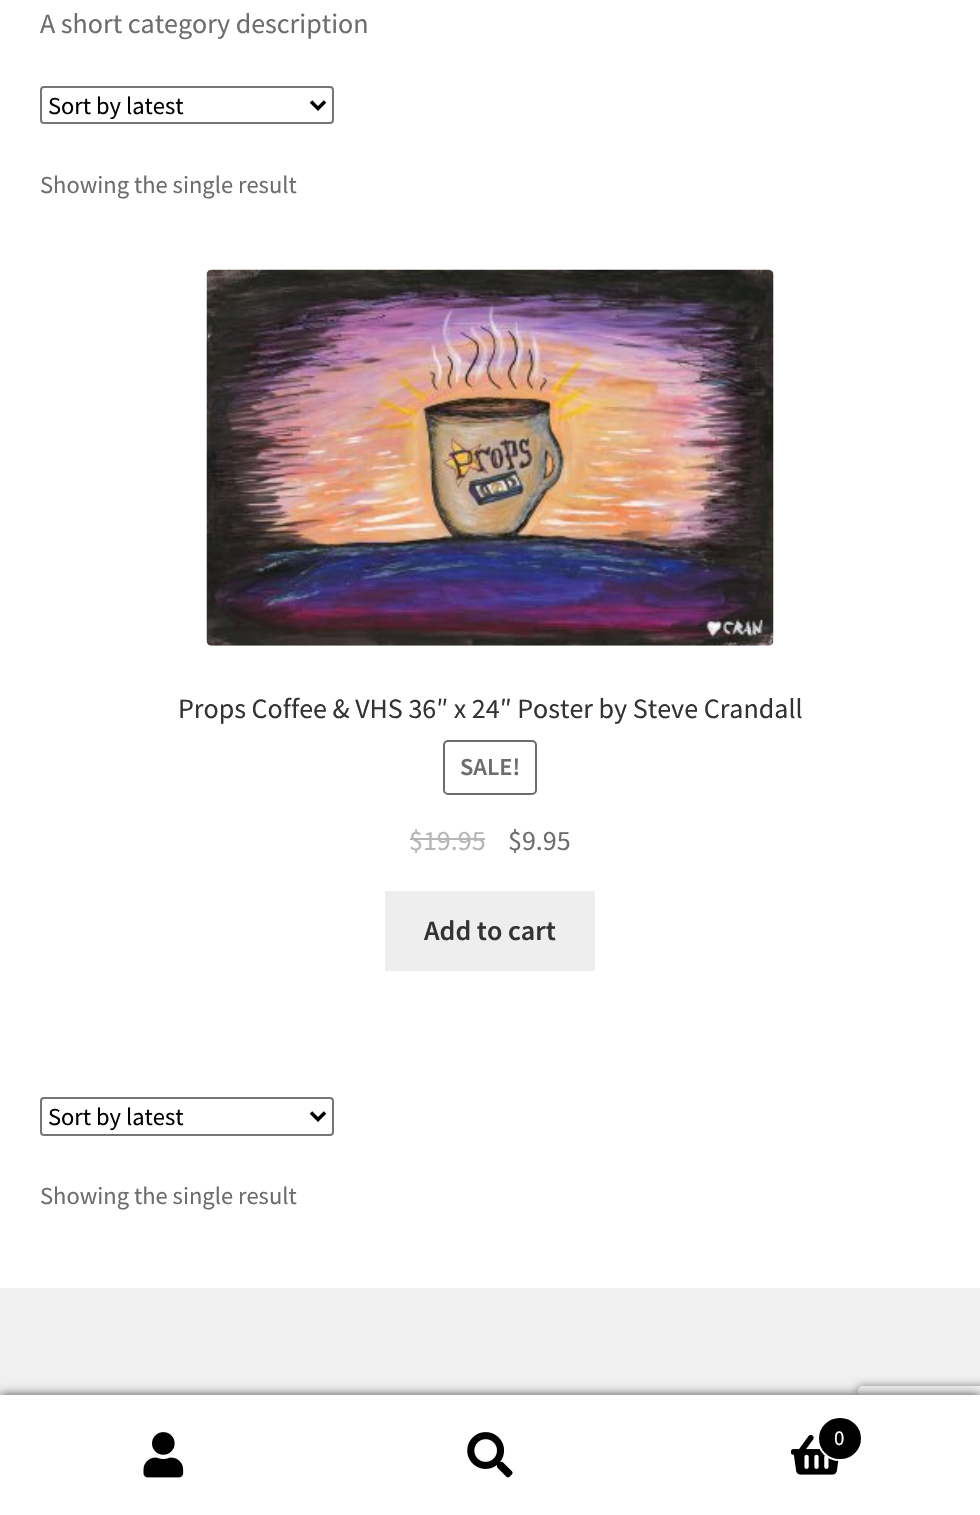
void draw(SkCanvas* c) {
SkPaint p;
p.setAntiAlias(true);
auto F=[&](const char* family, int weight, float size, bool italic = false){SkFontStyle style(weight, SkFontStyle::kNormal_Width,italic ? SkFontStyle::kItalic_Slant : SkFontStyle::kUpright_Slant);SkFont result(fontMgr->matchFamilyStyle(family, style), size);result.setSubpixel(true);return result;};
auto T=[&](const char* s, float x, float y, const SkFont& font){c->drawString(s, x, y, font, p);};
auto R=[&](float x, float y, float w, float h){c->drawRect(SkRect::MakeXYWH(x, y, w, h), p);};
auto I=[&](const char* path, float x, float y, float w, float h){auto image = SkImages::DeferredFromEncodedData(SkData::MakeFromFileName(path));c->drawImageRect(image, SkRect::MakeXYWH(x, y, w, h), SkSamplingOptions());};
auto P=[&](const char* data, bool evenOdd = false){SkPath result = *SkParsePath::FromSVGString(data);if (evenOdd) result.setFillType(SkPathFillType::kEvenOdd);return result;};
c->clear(0xffffffff);
auto f1 = F("Source Sans Pro",400,28);
p.setColor(0xff6d6d6d);
T("A short category description",40,33,f1);
p.setStroke(true);
p.setStrokeWidth(2);
p.setColor(0xff767676);
c->drawRoundRect(SkRect::MakeXYWH(41,87,292,36),3,3,p);
p.setStrokeWidth(3.5);
p.setColor(0xff000000);
c->drawPath(P("M311 101.5l7 7l7-7"),p);
auto f2 = F("Source Sans Pro",400,24.5);
p.setStroke(false);
T("Sort by latest",48,114,f2);
p.setColor(0xff6d6d6d);
T("Showing the single result",40,193,f2);
I("1.png",206,269,568,377);
p.setColor(0xff333333);
T("Props Coffee & VHS 36″ x 24″ Poster by Steve Crandall",178,718,f1);
p.setStroke(true);
p.setStrokeWidth(2);
p.setColor(0xff6d6d6d);
c->drawRoundRect(SkRect::MakeXYWH(444,741,92,53),4,4,p);
auto f3 = F("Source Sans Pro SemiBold",600,24.5);
p.setStroke(false);
T("SALE!",460,775,f3);
p.setColor(0xffb6b6b6);
T("$19.95",409,850,f1);
R(410,838,75,2);
p.setColor(0xff6d6d6d);
T("$9.95",508,850,f1);
p.setColor(0xffeeeeee);
R(385,891,210,80);
auto f4 = F("Source Sans Pro SemiBold",600,28);
p.setColor(0xff333333);
T("Add to cart",424,940,f4);
p.setStroke(true);
p.setColor(0xff767676);
c->drawRoundRect(SkRect::MakeXYWH(41,1098,292,37),3,3,p);
p.setStrokeWidth(3.5);
p.setColor(0xff000000);
c->drawPath(P("M311 1112.5l7 7l7-7"),p);
p.setStroke(false);
T("Sort by latest",48,1125,f2);
p.setColor(0xff6d6d6d);
T("Showing the single result",40,1204,f2);
p.setColor(0xfff0f0f0);
R(0,1288,980,107);
p.setColor(0xb3000000);
p.setMaskFilter(SkMaskFilter::MakeBlur(kNormal_SkBlurStyle, 5));
c->drawRect(SkRect::MakeXYWH(0,1395,980,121),p);
p.setMaskFilter(nullptr);
c->save();
c->clipPath(P("M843 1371h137v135h-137zm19 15h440c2 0 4 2 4 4v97c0 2-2 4-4 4h-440c-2 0-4-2-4-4v-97c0-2 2-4 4-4z",true),true);
p.setColor(0xff808080);
p.setMaskFilter(SkMaskFilter::MakeBlur(kNormal_SkBlurStyle, 4.5));
c->drawRoundRect(SkRect::MakeXYWH(858,1386,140,105),4,4,p);
p.setMaskFilter(nullptr);
c->restore();
p.setColor(0xffffffff);
R(0,1395,980,2);
R(0,1397,980,118);
I("2.png",143,1432,41,46);
I("3.png",467,1432,46,46);
I("4.png",791,1434,48,41);
p.setColor(0xff000000);
c->drawRoundRect(SkRect::MakeXYWH(818,1417,44,43),21.5,21.5,p);
p.setStroke(true);
p.setStrokeWidth(2);
p.setColor(0xffffffff);
c->drawRoundRect(SkRect::MakeXYWH(818,1417,44,43),21.5,21.5,p);
auto f5 = F("Source Sans Pro",400,21);
p.setStroke(false);
T("0",834,1445,f5);
}
